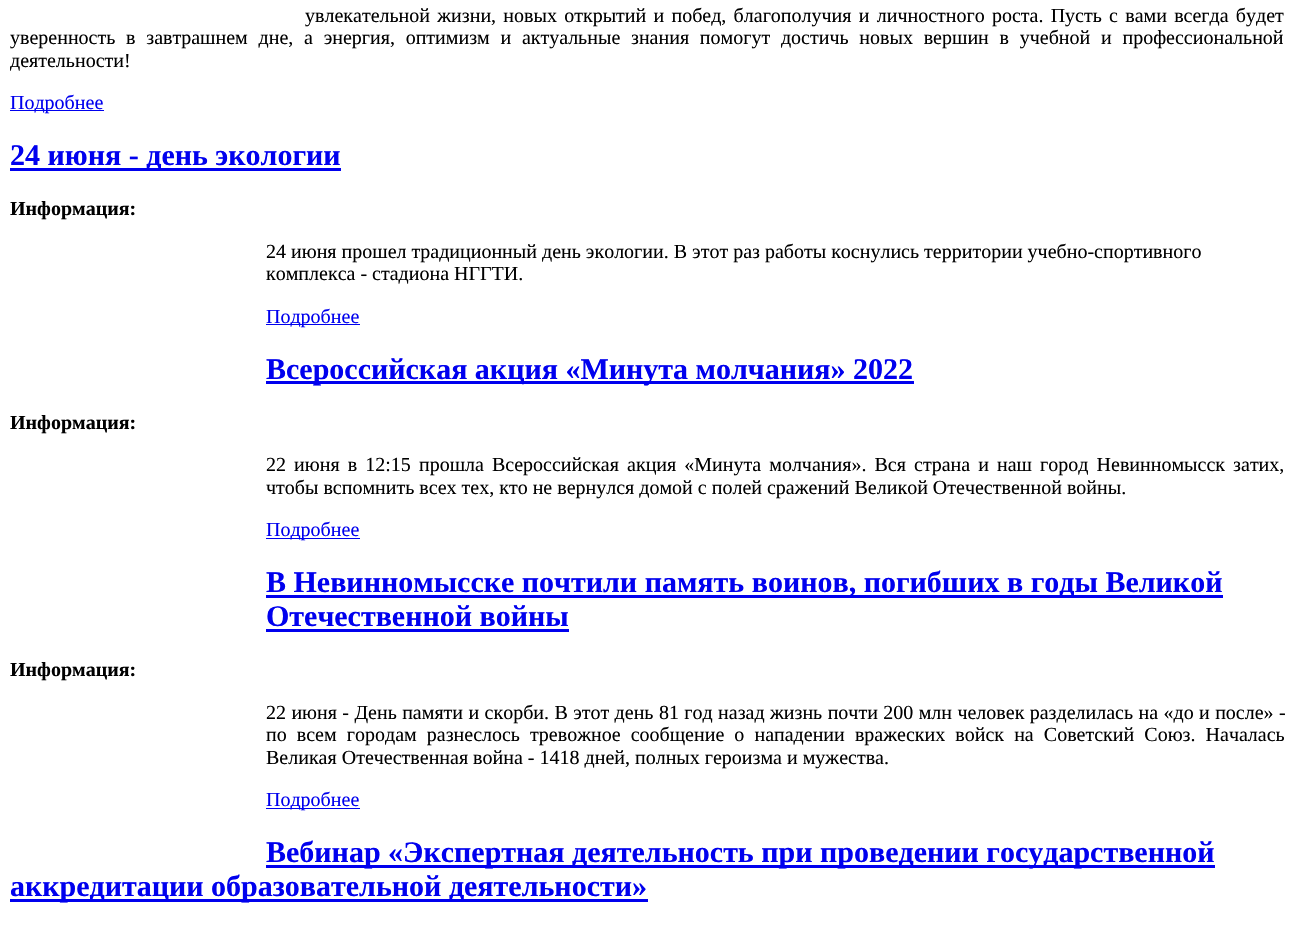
void draw(SkCanvas* c) {
SkPaint p;
p.setAntiAlias(true);
auto F=[&](const char* family, int weight, float size, bool italic = false){SkFontStyle style(weight, SkFontStyle::kNormal_Width,italic ? SkFontStyle::kItalic_Slant : SkFontStyle::kUpright_Slant);SkFont result(fontMgr->matchFamilyStyle(family, style), size);result.setSubpixel(true);return result;};
auto T=[&](const char* s, float x, float y, const SkFont& font){c->drawString(s, x, y, font, p);};
auto L=[&](const char* s, float x, float y, const SkFont& font, const SkPaint& ink, float letter, float word){std::vector<SkGlyphID> glyphs(font.countText(s, strlen(s), SkTextEncoding::kUTF8));std::vector<float> xs(glyphs.size());font.textToGlyphs(s, strlen(s), SkTextEncoding::kUTF8, glyphs);font.getXPos(glyphs, xs, x);float extra = 0;for (size_t i = 0; i < glyphs.size(); i++) {xs[i] += extra;extra += letter + word * (glyphs[i] == font.unicharToGlyph(' '));}c->drawTextBlob(SkTextBlob::MakeFromPosHGlyphs(glyphs, xs, y, font), 0, 0, ink);};
auto R=[&](float x, float y, float w, float h){c->drawRect(SkRect::MakeXYWH(x, y, w, h), p);};
c->clear(0xffffffff);
auto f1 = F("Liberation Serif",400,20);
p.setColor(0xff000000);
L("увлекательной жизни, новых открытий и побед, благополучия и личностного роста. Пусть с вами всегда будет",305,22,f1,p,0,2.25);
L("уверенность в завтрашнем дне, а энергия, оптимизм и актуальные знания помогут достичь новых вершин в учебной и профессиональной",10,44,f1,p,0,5.75);
T("деятельности!",10,67,f1);
p.setColor(0xff0000ee);
R(10,110,94,1);
T("Подробнее",10,109,f1);
R(10,168,331,3);
auto f2 = F("Liberation Serif",700,30);
T("24 июня - день экологии",10,165,f2);
auto f3 = F("Liberation Serif",700,20);
p.setColor(0xff000000);
T("Информация:",10,215,f3);
T("24 июня прошел традиционный день экологии. В этот раз работы коснулись территории учебно-спортивного",266,258,f1);
T("комплекса - стадиона НГГТИ.",266,280,f1);
p.setColor(0xff0000ee);
R(266,324,94,1);
T("Подробнее",266,323,f1);
R(266,381,648,3);
T("Всероссийская акция «Минута молчания» 2022",266,379,f2);
p.setColor(0xff000000);
T("Информация:",10,429,f3);
L("22 июня в 12:15 прошла Всероссийская акция «Минута молчания». Вся страна и наш город Невинномысск затих,",266,471,f1,p,0,3.1);
T("чтобы вспомнить всех тех, кто не вернулся домой с полей сражений Великой Отечественной войны.",266,494,f1);
p.setColor(0xff0000ee);
R(266,538,94,1);
T("Подробнее",266,536,f1);
R(266,595,957,3);
T("В Невинномысске почтили память воинов, погибших в годы Великой",266,592,f2);
T("Отечественной войны",266,626,f2);
R(266,629,303,3);
p.setColor(0xff000000);
T("Информация:",10,676,f3);
L("22 июня - День памяти и скорби. В этот день 81 год назад жизнь почти 200 млн человек разделилась на «до и после» -",266,719,f1,p,0,.4);
L("по всем городам разнеслось тревожное сообщение о нападении вражеских войск на Советский Союз. Началась",266,741,f1,p,0,5.1);
T("Великая Отечественная война - 1418 дней, полных героизма и мужества.",266,764,f1);
p.setColor(0xff0000ee);
R(266,808,94,1);
T("Подробнее",266,806,f1);
R(266,865,949,3);
T("Вебинар «Экспертная деятельность при проведении государственной",266,862,f2);
R(10,899,638,3);
T("аккредитации образовательной деятельности»",10,896,f2);
}
